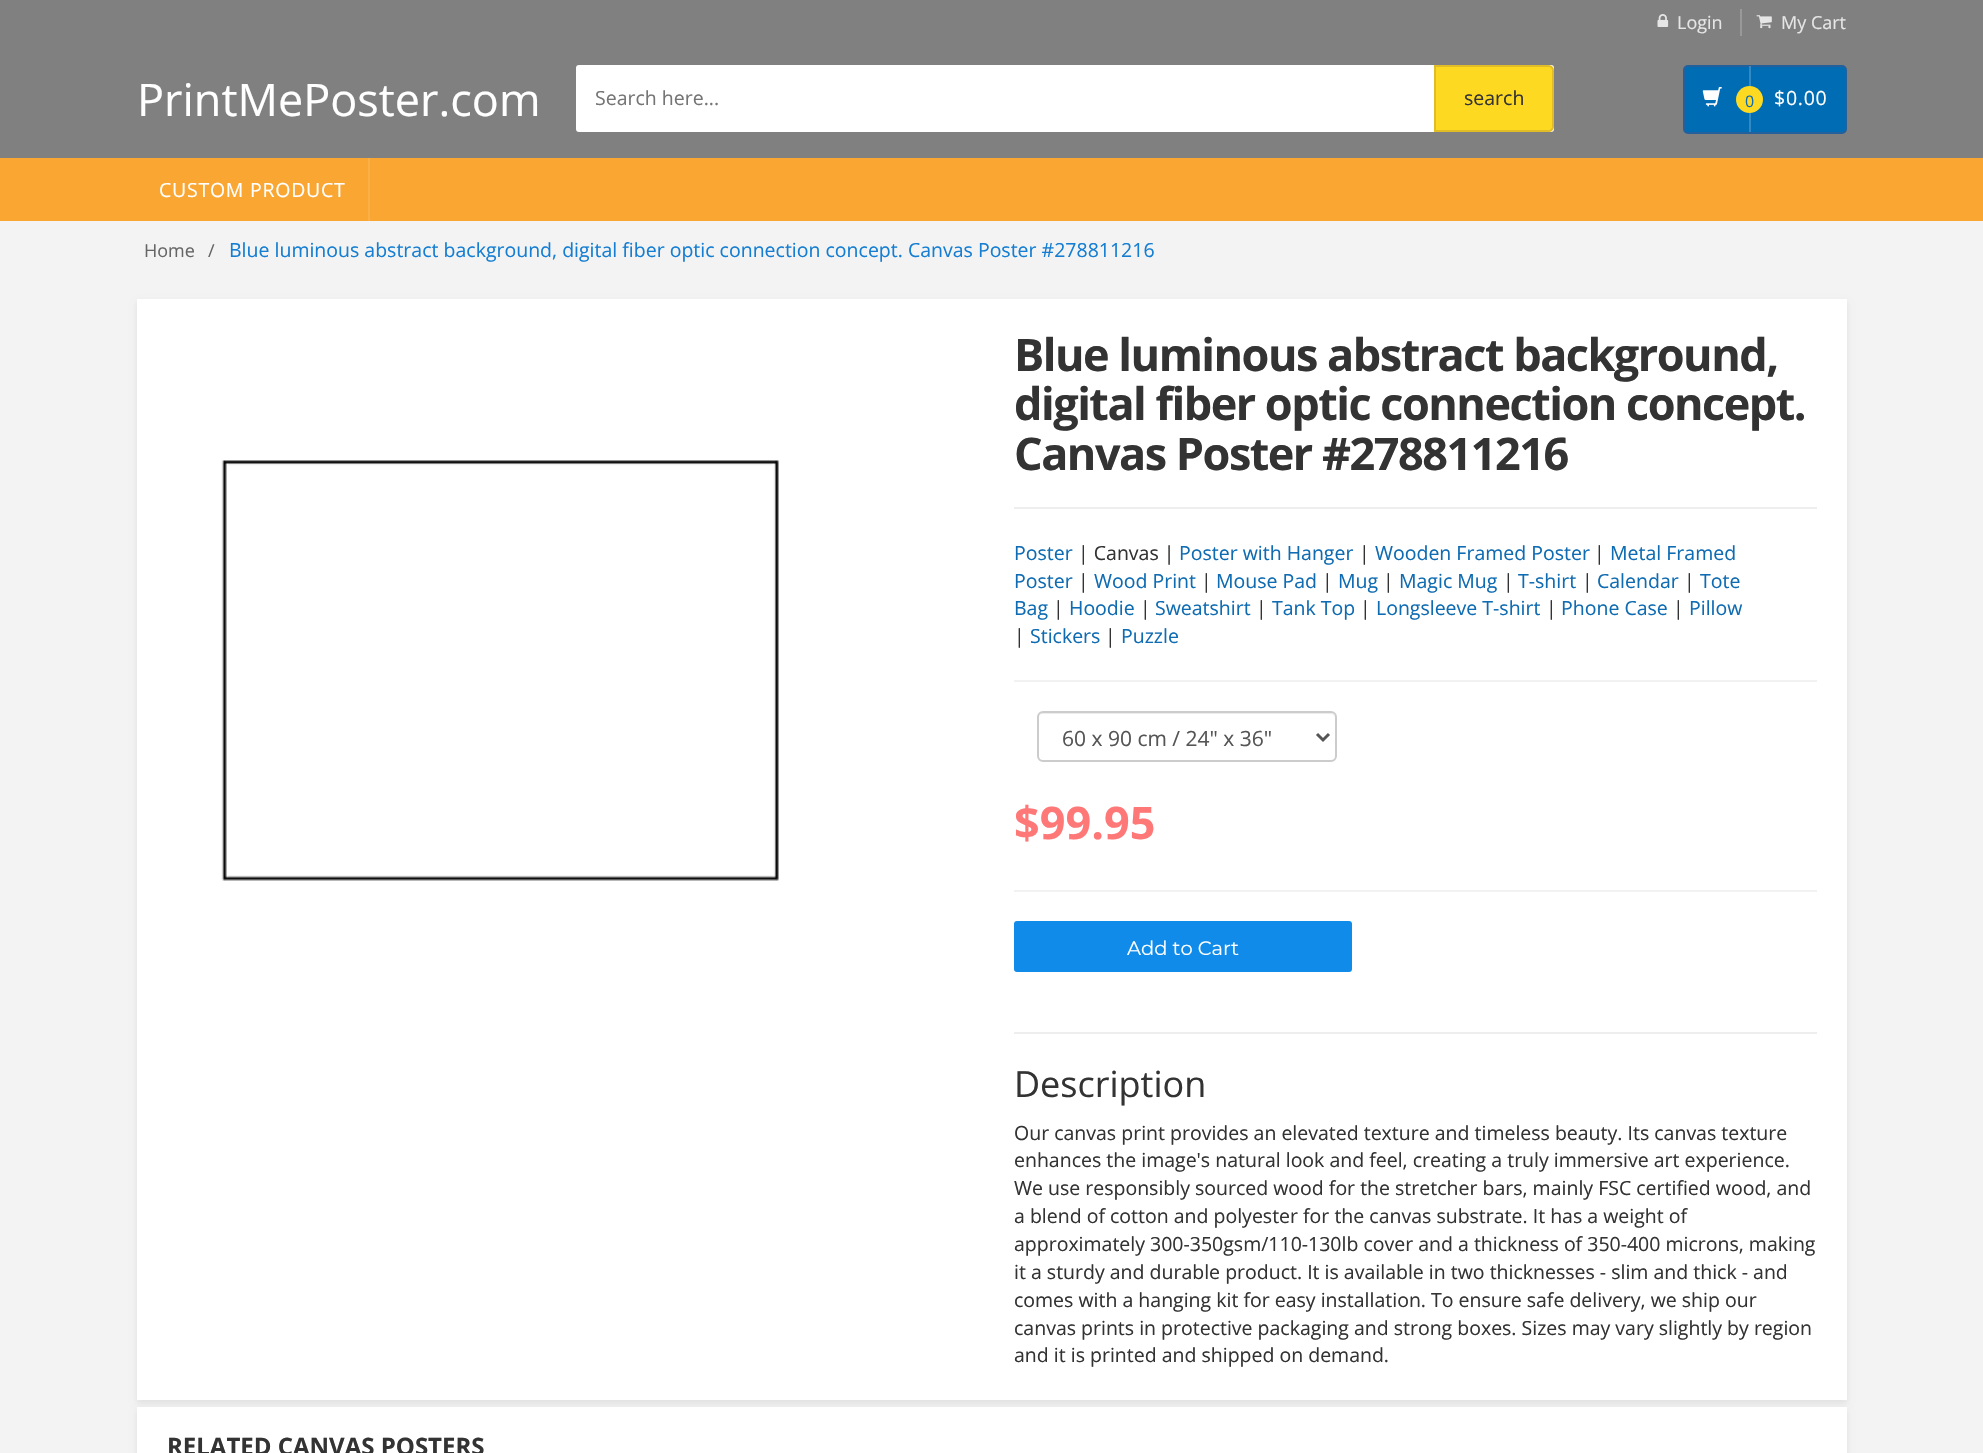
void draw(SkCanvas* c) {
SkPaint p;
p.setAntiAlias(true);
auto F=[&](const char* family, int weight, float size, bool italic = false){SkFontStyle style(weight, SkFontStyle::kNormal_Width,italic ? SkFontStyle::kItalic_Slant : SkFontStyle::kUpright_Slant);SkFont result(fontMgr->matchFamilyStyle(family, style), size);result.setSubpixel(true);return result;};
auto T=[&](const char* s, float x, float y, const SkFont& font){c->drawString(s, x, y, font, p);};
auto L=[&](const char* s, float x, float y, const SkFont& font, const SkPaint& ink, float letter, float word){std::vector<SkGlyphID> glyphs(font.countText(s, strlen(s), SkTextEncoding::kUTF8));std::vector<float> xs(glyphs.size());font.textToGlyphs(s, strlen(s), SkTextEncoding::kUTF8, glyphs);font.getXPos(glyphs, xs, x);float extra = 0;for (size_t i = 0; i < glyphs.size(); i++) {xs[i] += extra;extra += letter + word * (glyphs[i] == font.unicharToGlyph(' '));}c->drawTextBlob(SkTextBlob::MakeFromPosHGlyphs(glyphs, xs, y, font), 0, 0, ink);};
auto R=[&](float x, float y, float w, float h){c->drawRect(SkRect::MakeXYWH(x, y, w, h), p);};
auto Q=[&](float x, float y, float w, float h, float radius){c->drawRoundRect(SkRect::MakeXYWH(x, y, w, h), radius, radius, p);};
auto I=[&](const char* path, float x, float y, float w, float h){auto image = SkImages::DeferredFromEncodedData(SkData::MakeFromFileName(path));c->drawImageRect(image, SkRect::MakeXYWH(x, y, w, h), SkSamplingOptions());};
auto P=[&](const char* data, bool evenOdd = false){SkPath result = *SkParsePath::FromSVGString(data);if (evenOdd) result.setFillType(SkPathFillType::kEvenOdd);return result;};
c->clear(0xfff3f3f3);
p.setColor(0xff808080);
R(0,0,1983,158);
p.setColor(0xff999999);
R(1740,9,2,27);
I("1.png",1657,14,12,13);
auto f1 = F("Open Sans",400,18);
p.setColor(0xffe6e6e6);
T("Login",1677,29,f1);
I("2.png",1756,15,16,14);
T("My Cart",1781,29,f1);
auto f2 = F("Open Sans",400,45);
p.setColor(0xffffffff);
T("PrintMePoster.com",137,116,f2);
Q(576,65,978,67,3);
auto f3 = F("Open Sans",400,19.5);
p.setColor(0xff757575);
T("Search here...",595,105,f3);
p.setColor(0xfffdd922);
c->drawPath(P("M1435 66h114c2 0 4 2 4 4v57c0 2-2 4-4 4h-114z"),p);
p.setStroke(true);
p.setStrokeWidth(2);
p.setColor(0xffe0bc27);
c->drawPath(P("M1435 66h114c2 0 4 2 4 4v57c0 2-2 4-4 4h-114z"),p);
p.setStroke(false);
p.setColor(0xff333333);
T("search",1464,105,f3);
p.setColor(0xff006cb4);
c->drawRoundRect(SkRect::MakeXYWH(1684,66,162,67),4,4,p);
p.setStroke(true);
p.setColor(0xff24609c);
c->drawRoundRect(SkRect::MakeXYWH(1684,66,162,67),4,4,p);
p.setStroke(false);
p.setColor(0x33ffffff);
R(1749,66,2,66);
I("3.png",1702,87,20,20);
p.setColor(0xffffffff);
L("$0.00",1774,105,f3,p,.75,0);
p.setColor(0xfffdd922);
c->drawCircle(1749.5,99.5,13.5,p);
auto f4 = F("Open Sans",400,16);
p.setColor(0xff0f6cb2);
T("0",1745,107,f4);
p.setColor(0xfffaa632);
R(0,158,1983,63);
p.setColor(0xfffbaf47);
R(368,158,2,63);
p.setColor(0xffffffff);
L("CUSTOM PRODUCT",159,197,f3,p,.75,0);
p.setColor(0xff666666);
T("Home",144,257,f1);
T("/",208,257,f1);
p.setColor(0xff157ed2);
T("Blue luminous abstract background, digital fiber optic connection concept. Canvas Poster #278811216",229,257,f3);
p.setColor(0x14000000);
p.setMaskFilter(SkMaskFilter::MakeBlur(kNormal_SkBlurStyle, 3));
c->drawRect(SkRect::MakeXYWH(137,302,1710,1101),p);
p.setMaskFilter(nullptr);
p.setColor(0xffffffff);
R(137,299,1710,1101);
I("4.png",221,460,558,421);
auto f5 = F("Open Sans",700,45);
p.setColor(0xff333333);
L("Blue luminous abstract background,",1014,371,f5,p,-1.5,0);
L("digital fiber optic connection concept.",1014,420,f5,p,-1.5,0);
L("Canvas Poster #278811216",1014,470,f5,p,-1.5,0);
p.setColor(0xffeeeeee);
R(1014,507,803,2);
p.setColor(0xff0f6cb2);
T("Poster",1014,560,f3);
p.setColor(0xff333333);
T("| Canvas |",1078,560,f3);
p.setColor(0xff0f6cb2);
T("Poster with Hanger",1179,560,f3);
p.setColor(0xff333333);
T("|",1359,560,f3);
p.setColor(0xff0f6cb2);
T("Wooden Framed Poster",1375,560,f3);
p.setColor(0xff333333);
T("|",1594,560,f3);
p.setColor(0xff0f6cb2);
T("Metal Framed",1610,560,f3);
T("Poster",1014,588,f3);
p.setColor(0xff333333);
T("|",1078,588,f3);
p.setColor(0xff0f6cb2);
T("Wood Print",1094,588,f3);
p.setColor(0xff333333);
T("|",1201,588,f3);
p.setColor(0xff0f6cb2);
T("Mouse Pad",1216,588,f3);
p.setColor(0xff333333);
T("|",1322,588,f3);
p.setColor(0xff0f6cb2);
T("Mug",1338,588,f3);
p.setColor(0xff333333);
T("|",1383,588,f3);
p.setColor(0xff0f6cb2);
T("Magic Mug",1399,588,f3);
p.setColor(0xff333333);
T("|",1503,588,f3);
p.setColor(0xff0f6cb2);
T("T-shirt",1518,588,f3);
p.setColor(0xff333333);
T("|",1582,588,f3);
p.setColor(0xff0f6cb2);
T("Calendar",1597,588,f3);
p.setColor(0xff333333);
T("|",1684,588,f3);
p.setColor(0xff0f6cb2);
T("Tote",1700,588,f3);
T("Bag",1014,615,f3);
p.setColor(0xff333333);
T("|",1053,615,f3);
p.setColor(0xff0f6cb2);
T("Hoodie",1069,615,f3);
p.setColor(0xff333333);
T("|",1140,615,f3);
p.setColor(0xff0f6cb2);
T("Sweatshirt",1155,615,f3);
p.setColor(0xff333333);
T("|",1256,615,f3);
p.setColor(0xff0f6cb2);
T("Tank Top",1272,615,f3);
p.setColor(0xff333333);
T("|",1360,615,f3);
p.setColor(0xff0f6cb2);
T("Longsleeve T-shirt",1376,615,f3);
p.setColor(0xff333333);
T("|",1546,615,f3);
p.setColor(0xff0f6cb2);
T("Phone Case",1561,615,f3);
p.setColor(0xff333333);
T("|",1673,615,f3);
p.setColor(0xff0f6cb2);
T("Pillow",1689,615,f3);
p.setColor(0xff333333);
T("|",1014,643,f3);
p.setColor(0xff0f6cb2);
T("Stickers",1030,643,f3);
p.setColor(0xff333333);
T("|",1105,643,f3);
p.setColor(0xff0f6cb2);
T("Puzzle",1121,643,f3);
p.setColor(0xfff2f2f2);
R(1014,680,803,2);
R(1014,890,803,2);
p.setColor(0xffececec);
c->drawPath(P("M1042 714h288c3 0 5 2 5 4c0-3-2-5-5-5h-287c-3 0-5 2-5 5c0-2 2-4 4-4z"),p);
p.setStroke(true);
p.setColor(0xffcccccc);
c->drawRoundRect(SkRect::MakeXYWH(1038,712,298,49),5,5,p);
p.setStrokeWidth(3);
p.setColor(0xff555555);
c->drawPath(P("M1317 734l6 6l6-6"),p);
auto f6 = F("Open Sans",400,21);
p.setStroke(false);
T("60 x 90 cm / 24\" x 36\"",1062,746,f6);
p.setColor(0xffff7878);
T("$99.95",1014,839,f5);
p.setColor(0xff108bea);
Q(1014,921,338,51,3);
auto f7 = F("Montserrat",400,19.5);
p.setColor(0xffffffff);
T("Add to Cart",1127,955,f7);
p.setColor(0xffeeeeee);
R(1014,1032,803,2);
auto f8 = F("Open Sans",400,36);
p.setColor(0xff333333);
T("Description",1014,1097,f8);
T("Our canvas print provides an elevated texture and timeless beauty. Its canvas texture",1014,1140,f3);
T("enhances the image's natural look and feel, creating a truly immersive art experience.",1014,1167,f3);
T("We use responsibly sourced wood for the stretcher bars, mainly FSC certified wood, and",1014,1195,f3);
T("a blend of cotton and polyester for the canvas substrate. It has a weight of",1014,1223,f3);
T("approximately 300-350gsm/110-130lb cover and a thickness of 350-400 microns, making",1014,1251,f3);
T("it a sturdy and durable product. It is available in two thicknesses - slim and thick - and",1014,1279,f3);
T("comes with a hanging kit for easy installation. To ensure safe delivery, we ship our",1014,1307,f3);
T("canvas prints in protective packaging and strong boxes. Sizes may vary slightly by region",1014,1335,f3);
T("and it is printed and shipped on demand.",1014,1362,f3);
p.setColor(0x14000000);
p.setMaskFilter(SkMaskFilter::MakeBlur(kNormal_SkBlurStyle, 3));
c->drawRect(SkRect::MakeXYWH(137,1410,1710,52),p);
p.setMaskFilter(nullptr);
p.setColor(0xffffffff);
R(137,1407,1710,46);
auto f9 = F("Open Sans",700,24);
p.setColor(0xff333333);
T("RELATED CANVAS POSTERS",167,1455,f9);
}
